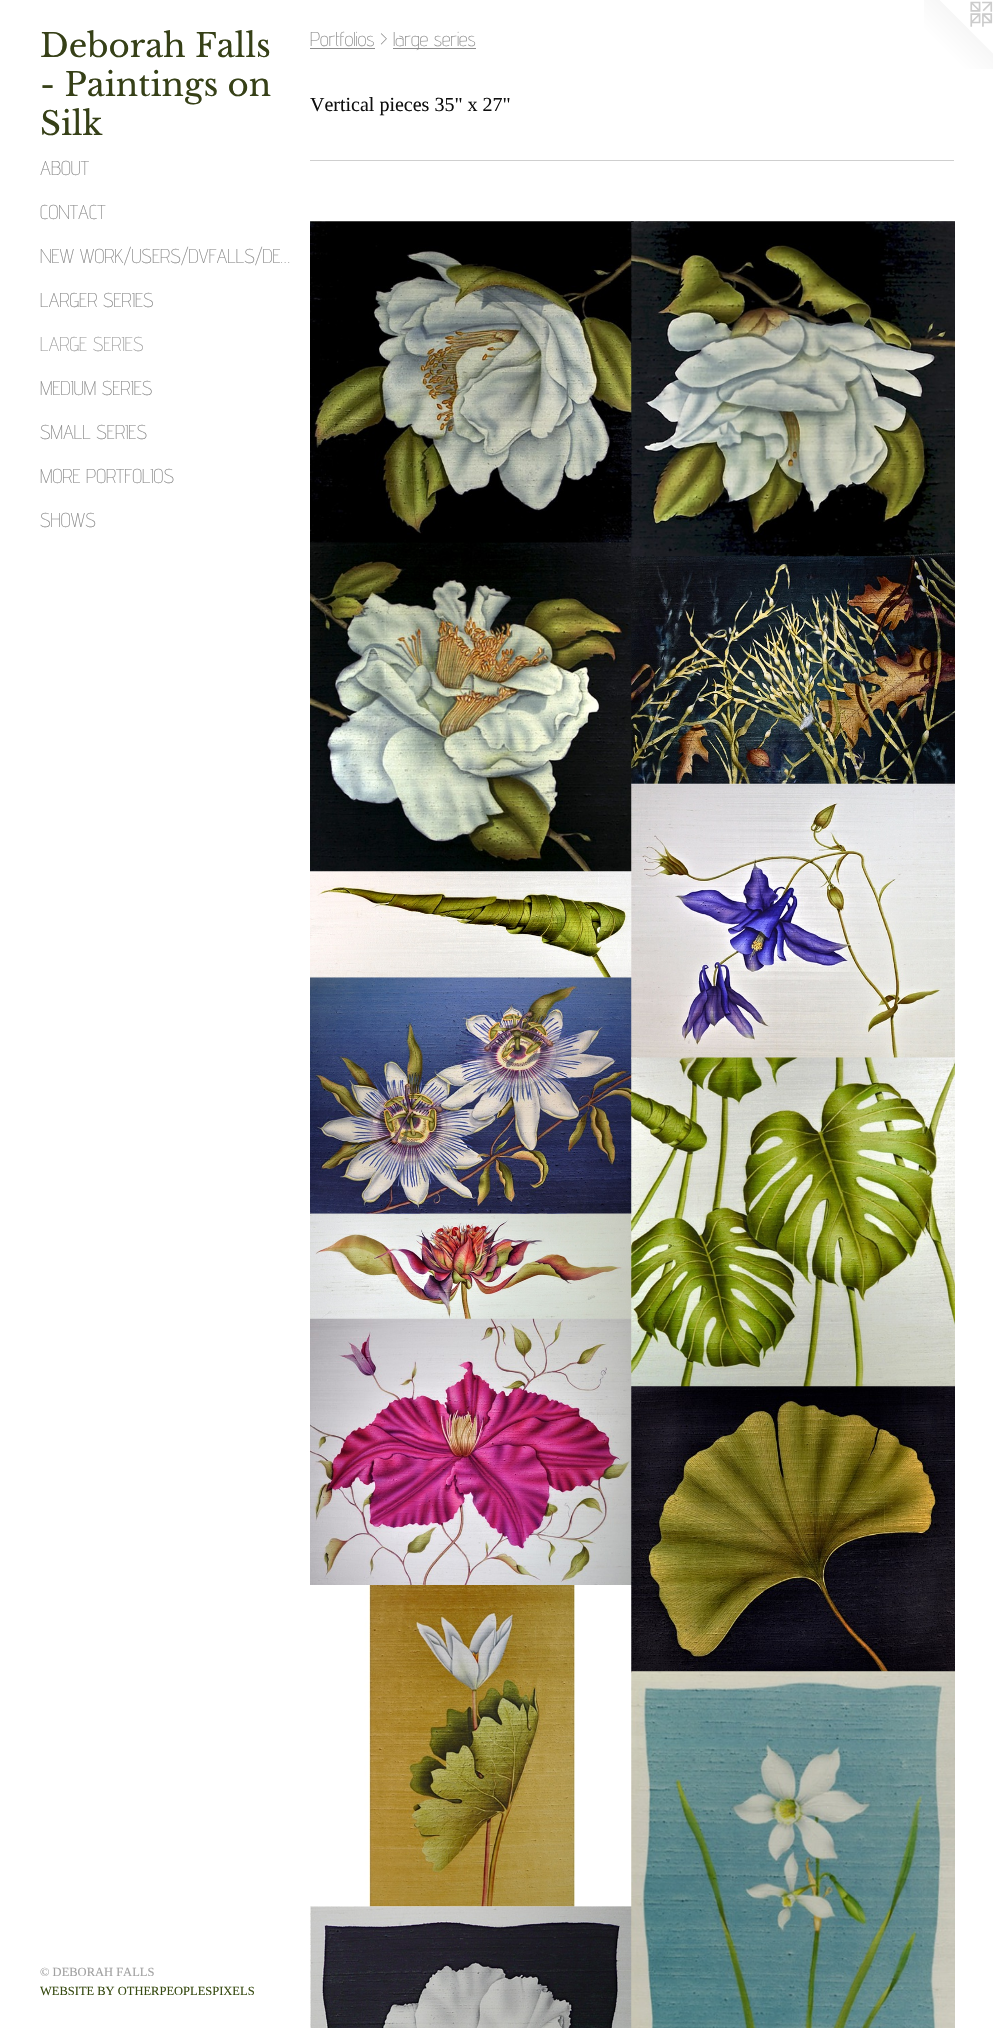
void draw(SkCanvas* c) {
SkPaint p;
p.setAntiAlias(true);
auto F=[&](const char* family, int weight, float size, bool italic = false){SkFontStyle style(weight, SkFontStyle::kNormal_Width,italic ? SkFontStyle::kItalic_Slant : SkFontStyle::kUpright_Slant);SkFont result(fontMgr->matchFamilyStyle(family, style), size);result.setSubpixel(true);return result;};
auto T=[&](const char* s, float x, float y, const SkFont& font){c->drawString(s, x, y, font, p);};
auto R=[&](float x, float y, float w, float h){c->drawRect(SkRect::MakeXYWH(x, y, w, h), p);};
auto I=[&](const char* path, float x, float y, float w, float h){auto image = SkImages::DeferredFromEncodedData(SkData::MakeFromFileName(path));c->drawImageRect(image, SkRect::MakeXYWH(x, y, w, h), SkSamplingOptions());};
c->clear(0xffffffff);
auto f1 = F("Libre Baskerville",400,32.5);
p.setColor(0xff364017);
T("Deborah Falls",40,57,f1);
T("- Paintings on",40,96,f1);
T("Silk",40,135,f1);
auto f2 = F("Advent Pro",200,20);
p.setColor(0xff8c8c8c);
T("ABOUT",40,175,f2);
T("CONTACT",40,219,f2);
T("NEW WORK/USERS/DVFALLS/DE…",40,263,f2);
T("LARGER SERIES",40,307,f2);
p.setColor(0xffa1a1a1);
T("LARGE SERIES",40,351,f2);
p.setColor(0xff8c8c8c);
T("MEDIUM SERIES",40,395,f2);
T("SMALL SERIES",40,439,f2);
T("MORE PORTFOLIOS",40,483,f2);
T("SHOWS",40,527,f2);
auto f3 = F("Liberation Serif",400,12.5);
p.setColor(0xffa1a1a1);
T("© DEBORAH FALLS",40,1976,f3);
p.setColor(0xff374b11);
T("WEBSITE BY OTHERPEOPLESPIXELS",40,1995,f3);
p.setColor(0xff8c8c8c);
T("Portfolios >",310,46,f2);
R(310,48,65,1);
R(393,48,83,1);
T("large series",393,46,f2);
p.setColor(0xffcfcfcf);
R(310,160,644,1);
auto f4 = F("Liberation Serif",400,20);
p.setColor(0xff0f0f0f);
T("Vertical pieces 35\" x 27\"",310,111,f4);
I("1.png",310,221,324,322);
I("3.png",310,542,322,330);
I("2.png",631,221,324,337);
I("4.png",631,556,324,231);
I("5.png",310,871,322,107);
I("7.png",310,977,322,237);
I("8.png",310,977,322,237);
I("6.png",631,783,324,276);
I("10.png",310,1213,322,106);
I("11.png",310,1318,322,267);
I("9.png",631,1057,324,331);
I("13.png",310,1585,322,322);
I("12.png",631,1386,324,287);
I("15.png",310,1906,322,122);
I("14.png",631,1671,324,357);
I("16.png",924,0,69,69);
}
